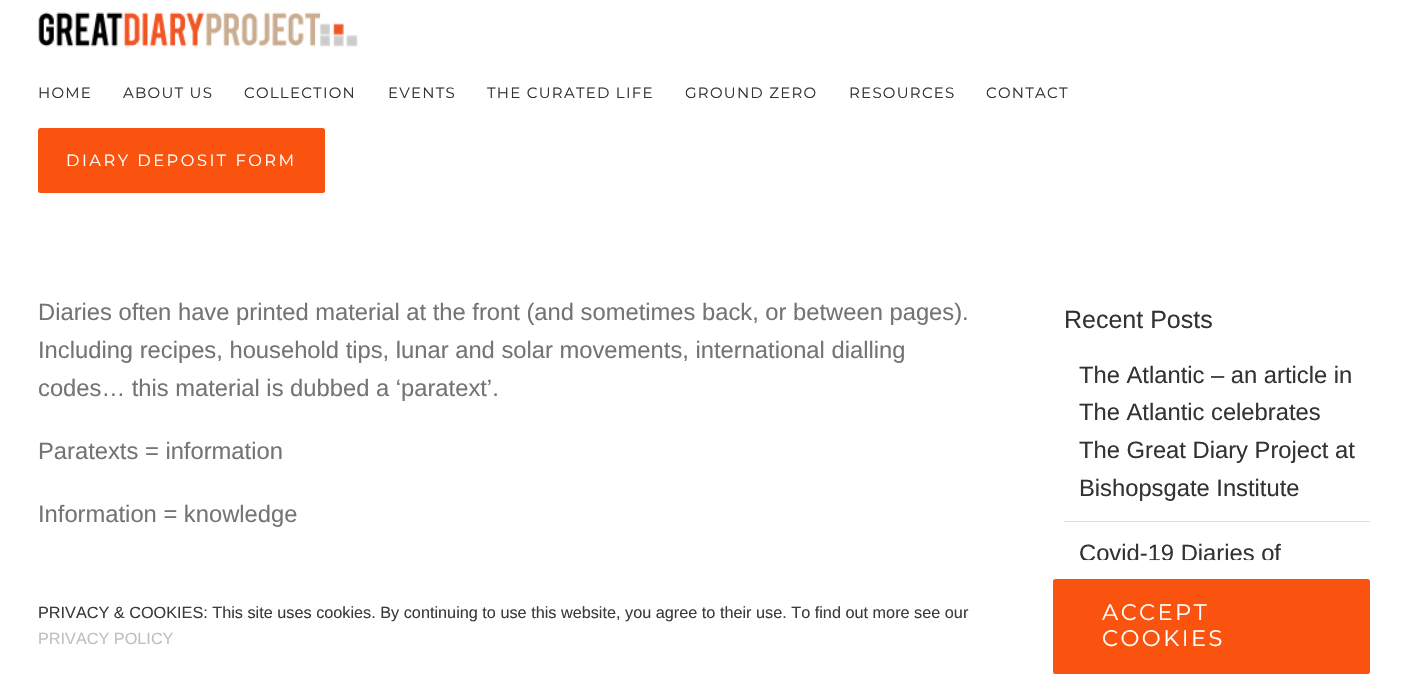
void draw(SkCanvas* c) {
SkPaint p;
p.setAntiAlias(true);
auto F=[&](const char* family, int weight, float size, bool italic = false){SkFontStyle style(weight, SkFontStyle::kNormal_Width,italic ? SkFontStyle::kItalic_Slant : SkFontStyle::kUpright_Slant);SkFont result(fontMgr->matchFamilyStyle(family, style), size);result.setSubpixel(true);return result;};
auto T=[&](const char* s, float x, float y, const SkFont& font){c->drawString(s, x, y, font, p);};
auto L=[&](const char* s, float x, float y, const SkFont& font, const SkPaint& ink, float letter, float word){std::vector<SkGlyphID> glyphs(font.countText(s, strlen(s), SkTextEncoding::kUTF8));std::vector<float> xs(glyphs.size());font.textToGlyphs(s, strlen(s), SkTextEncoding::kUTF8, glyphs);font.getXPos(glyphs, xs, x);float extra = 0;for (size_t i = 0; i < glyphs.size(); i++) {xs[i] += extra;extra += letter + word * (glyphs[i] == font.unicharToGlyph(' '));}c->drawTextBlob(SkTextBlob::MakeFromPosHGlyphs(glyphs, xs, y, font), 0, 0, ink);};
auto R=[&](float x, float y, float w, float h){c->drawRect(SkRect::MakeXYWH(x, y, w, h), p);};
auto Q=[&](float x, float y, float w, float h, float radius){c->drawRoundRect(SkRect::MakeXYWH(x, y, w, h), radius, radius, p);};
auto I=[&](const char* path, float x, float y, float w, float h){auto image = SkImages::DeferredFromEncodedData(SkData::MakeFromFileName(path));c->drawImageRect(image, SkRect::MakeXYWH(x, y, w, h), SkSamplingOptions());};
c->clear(0xffffffff);
I("1.png",38,12,320,35);
auto f1 = F("Montserrat",100,15);
p.setColor(0xff333333);
L("HOME",38,98,f1,p,1.25,0);
L("ABOUT US",123,98,f1,p,1.25,0);
L("COLLECTION",244,98,f1,p,1.25,0);
L("EVENTS",388,98,f1,p,1.25,0);
L("THE CURATED LIFE",487,98,f1,p,1.25,0);
L("GROUND ZERO",685,98,f1,p,1.25,0);
L("RESOURCES",849,98,f1,p,1.25,0);
L("CONTACT",986,98,f1,p,1.25,0);
p.setColor(0xfffa520f);
Q(38,128,287,65,2.5);
auto f2 = F("Montserrat",100,16.25);
p.setColor(0xffffffff);
L("DIARY DEPOSIT FORM",66,166,f2,p,2.5,0);
auto f3 = F("Liberation Sans",400,23.75);
p.setColor(0xff747474);
T("Diaries often have printed material at the front (and sometimes back, or between pages).",38,320,f3);
T("Including recipes, household tips, lunar and solar movements, international dialling",38,358,f3);
T("codes… this material is dubbed a ‘paratext’.",38,396,f3);
T("Paratexts = information",38,459,f3);
T("Information = knowledge",38,522,f3);
auto f4 = F("Liberation Sans",400,25);
p.setColor(0xff333333);
T("Recent Posts",1064,328,f4);
p.setColor(0xffe0dede);
R(1064,521,306,1);
p.setColor(0xff333333);
T("The Atlantic – an article in",1079,383,f3);
T("The Atlantic celebrates",1079,420,f3);
T("The Great Diary Project at",1079,458,f3);
T("Bishopsgate Institute",1079,496,f3);
T("Covid-19 Diaries of",1079,561,f3);
p.setColor(0xf2ffffff);
R(1083,560,196,2);
auto f5 = F("Liberation Sans",400,16.25);
p.setColor(0xff3b3b3b);
T("PRIVACY & COOKIES: This site uses cookies. By continuing to use this website, you agree to their use. To find out more see our",38,618,f5);
p.setColor(0xffbfbfbf);
T("PRIVACY POLICY",38,644,f5);
p.setColor(0xfffa520f);
Q(1053,579,317,95,2.5);
auto f6 = F("Montserrat",100,22.5);
p.setColor(0xffffffff);
L("ACCEPT",1102,620,f6,p,2.5,0);
L("COOKIES",1102,646,f6,p,2.5,0);
}
